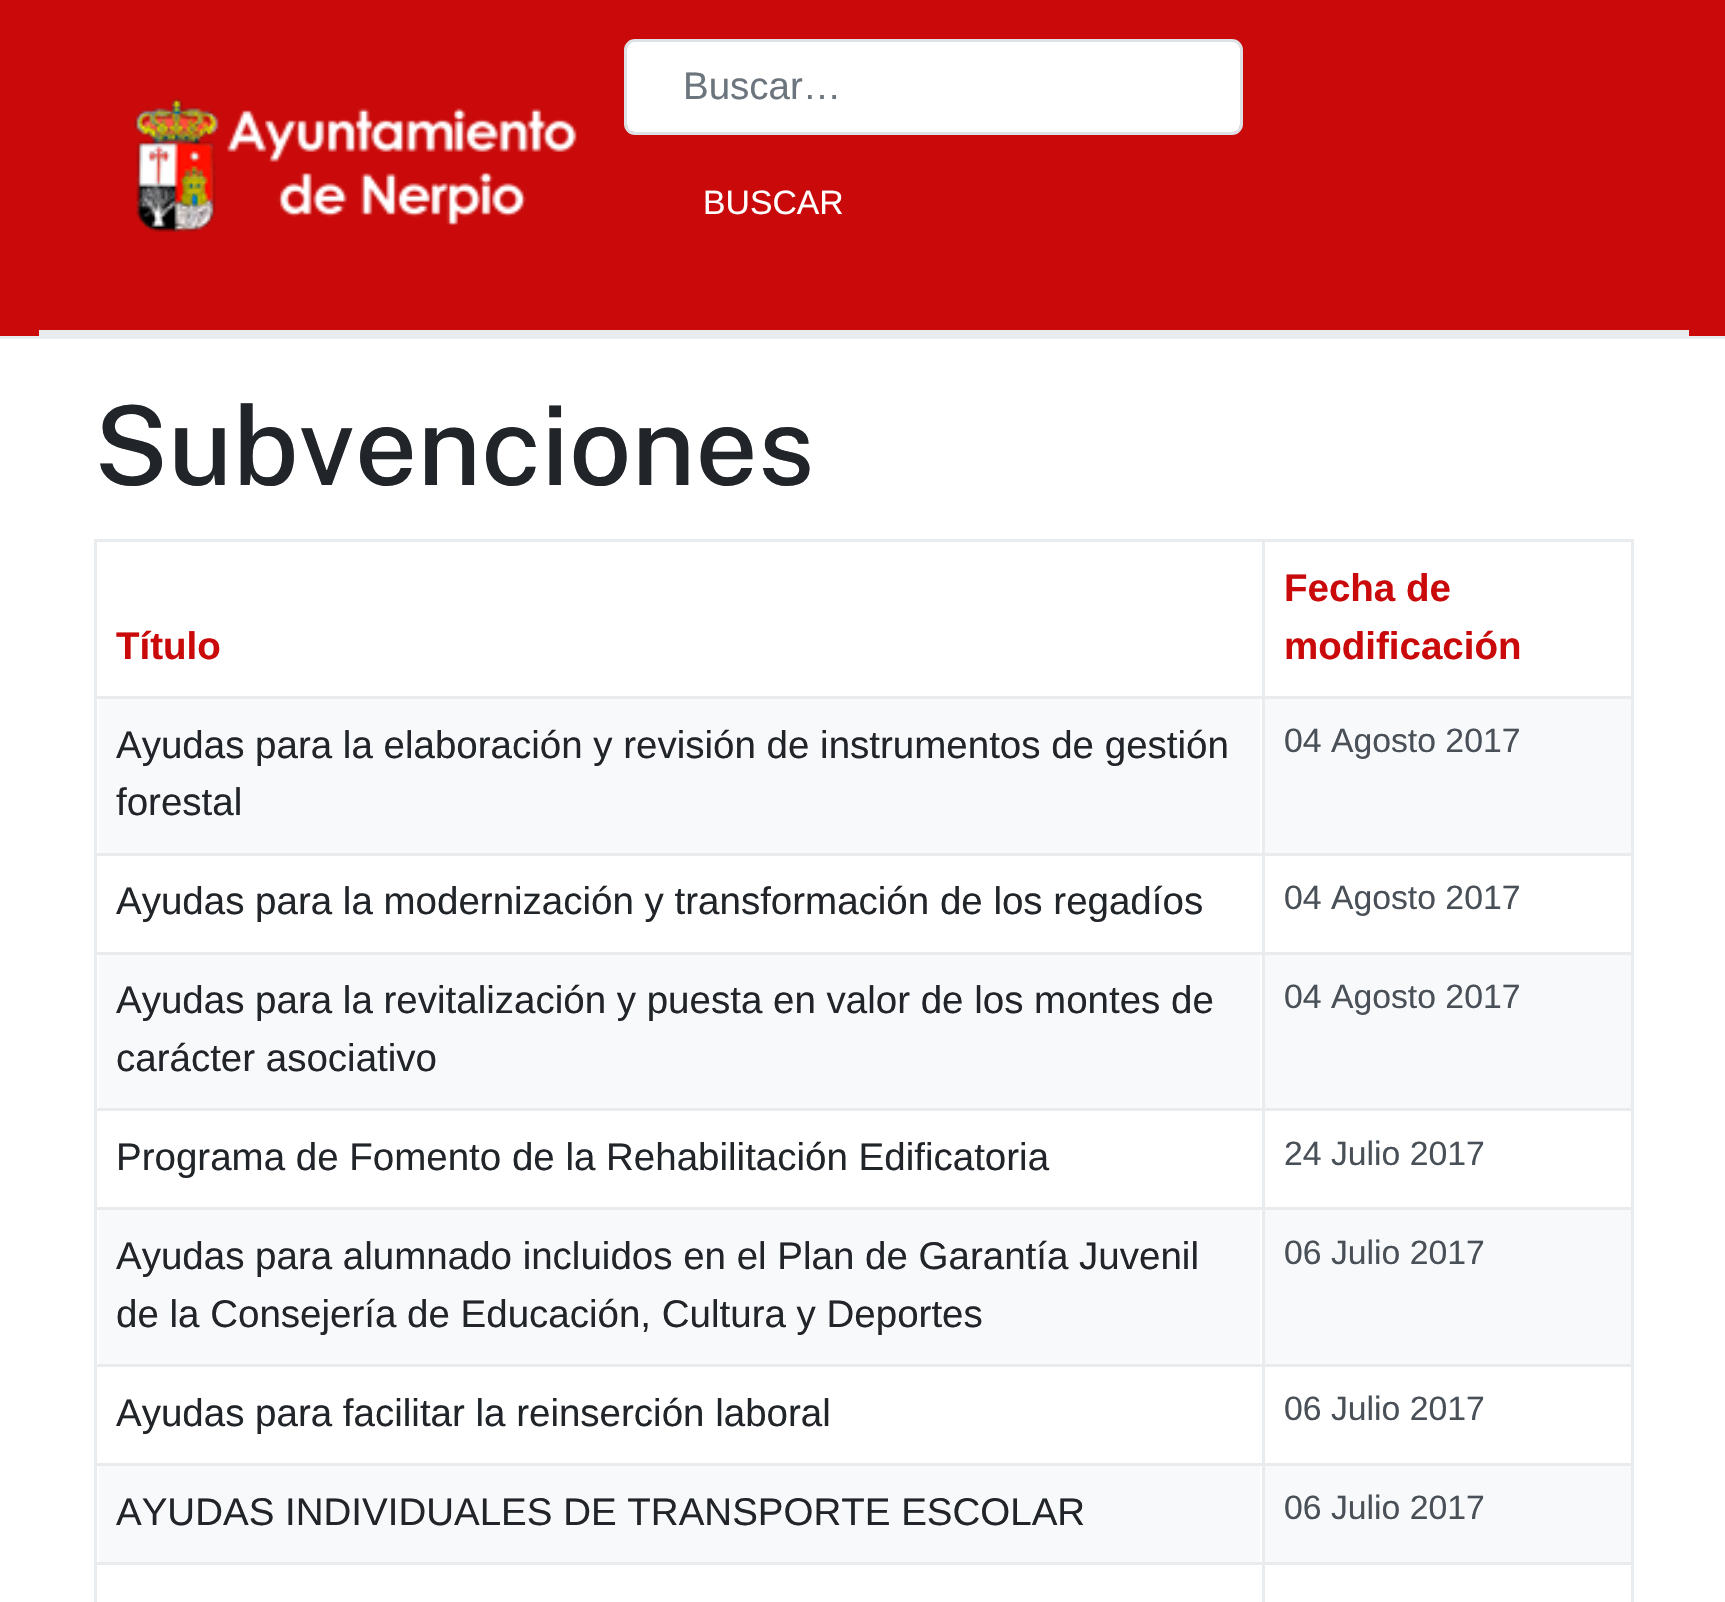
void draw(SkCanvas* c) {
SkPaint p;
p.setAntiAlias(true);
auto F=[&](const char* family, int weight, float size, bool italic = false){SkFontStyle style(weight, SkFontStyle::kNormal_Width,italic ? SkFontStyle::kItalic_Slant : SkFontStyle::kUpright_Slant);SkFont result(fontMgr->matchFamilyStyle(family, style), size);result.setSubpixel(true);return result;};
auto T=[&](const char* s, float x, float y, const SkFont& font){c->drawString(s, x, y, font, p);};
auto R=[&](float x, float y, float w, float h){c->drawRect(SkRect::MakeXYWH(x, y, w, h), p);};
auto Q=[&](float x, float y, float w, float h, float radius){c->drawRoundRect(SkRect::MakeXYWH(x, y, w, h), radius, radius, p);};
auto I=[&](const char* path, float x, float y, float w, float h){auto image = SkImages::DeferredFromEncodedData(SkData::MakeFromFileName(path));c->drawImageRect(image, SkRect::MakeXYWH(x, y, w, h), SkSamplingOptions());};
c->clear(0xffffffff);
p.setColor(0xffca0a0a);
R(0,0,1725,336);
I("1.png",134,98,443,134);
p.setColor(0xffffffff);
Q(627,41,613,91,7);
p.setStroke(true);
p.setStrokeWidth(3);
p.setColor(0xffdee2e6);
c->drawRoundRect(SkRect::MakeXYWH(625.5,40.5,616,93),9.5,9.5,p);
auto f1 = F("Liberation Sans",400,38.5);
p.setStroke(false);
p.setColor(0xff6c757d);
T("Buscar…",683,99,f1);
auto f2 = F("Liberation Sans",400,33.75);
p.setColor(0xffffffff);
T("BUSCAR",703,214,f2);
p.setColor(0xffe9ecef);
R(39,330,1650,6);
R(0,336,1725,3);
auto f3 = F("Public Sans",500,110);
p.setColor(0xff212529);
T("Subvenciones",94,485,f3);
p.setColor(0xffe9ecef);
R(94,539,1540,3);
auto f4 = F("Liberation Sans",700,38.5);
p.setColor(0xffca0a0a);
T("Título",116,659,f4);
T("Fecha de",1284,601,f4);
T("modificación",1284,659,f4);
p.setColor(0xffe9ecef);
R(94,1562,1540,3);
R(94,696,1540,3);
R(94,853,1540,3);
R(94,952,1540,3);
R(94,1108,1540,3);
R(94,1207,1540,3);
R(94,1364,1540,3);
R(94,1463,1540,3);
R(94,539,3,1063);
R(1631,539,3,1063);
R(1262,539,3,1063);
p.setColor(0xfff8f9fa);
R(99,699,1161,154);
p.setColor(0xff212529);
T("Ayudas para la elaboración y revisión de instrumentos de gestión",116,758,f1);
T("forestal",116,815,f1);
p.setColor(0xfff8f9fa);
R(1265,699,366,154);
p.setColor(0xff495057);
T("04 Agosto 2017",1284,752,f2);
p.setColor(0xff212529);
T("Ayudas para la modernización y transformación de los regadíos",116,914,f1);
p.setColor(0xff495057);
T("04 Agosto 2017",1284,909,f2);
p.setColor(0xfff8f9fa);
R(99,955,1161,153);
p.setColor(0xff212529);
T("Ayudas para la revitalización y puesta en valor de los montes de",116,1013,f1);
T("carácter asociativo",116,1071,f1);
p.setColor(0xfff8f9fa);
R(1265,955,366,153);
p.setColor(0xff495057);
T("04 Agosto 2017",1284,1008,f2);
p.setColor(0xff212529);
T("Programa de Fomento de la Rehabilitación Edificatoria",116,1170,f1);
p.setColor(0xff495057);
T("24 Julio 2017",1284,1165,f2);
p.setColor(0xfff8f9fa);
R(99,1210,1161,154);
p.setColor(0xff212529);
T("Ayudas para alumnado incluidos en el Plan de Garantía Juvenil",116,1269,f1);
T("de la Consejería de Educación, Cultura y Deportes",116,1327,f1);
p.setColor(0xfff8f9fa);
R(1265,1210,366,154);
p.setColor(0xff495057);
T("06 Julio 2017",1284,1264,f2);
p.setColor(0xff212529);
T("Ayudas para facilitar la reinserción laboral",116,1426,f1);
p.setColor(0xff495057);
T("06 Julio 2017",1284,1420,f2);
p.setColor(0xfff8f9fa);
R(99,1466,1161,96);
p.setColor(0xff212529);
T("AYUDAS INDIVIDUALES DE TRANSPORTE ESCOLAR",116,1525,f1);
p.setColor(0xfff8f9fa);
R(1265,1466,366,96);
p.setColor(0xff495057);
T("06 Julio 2017",1284,1519,f2);
}
